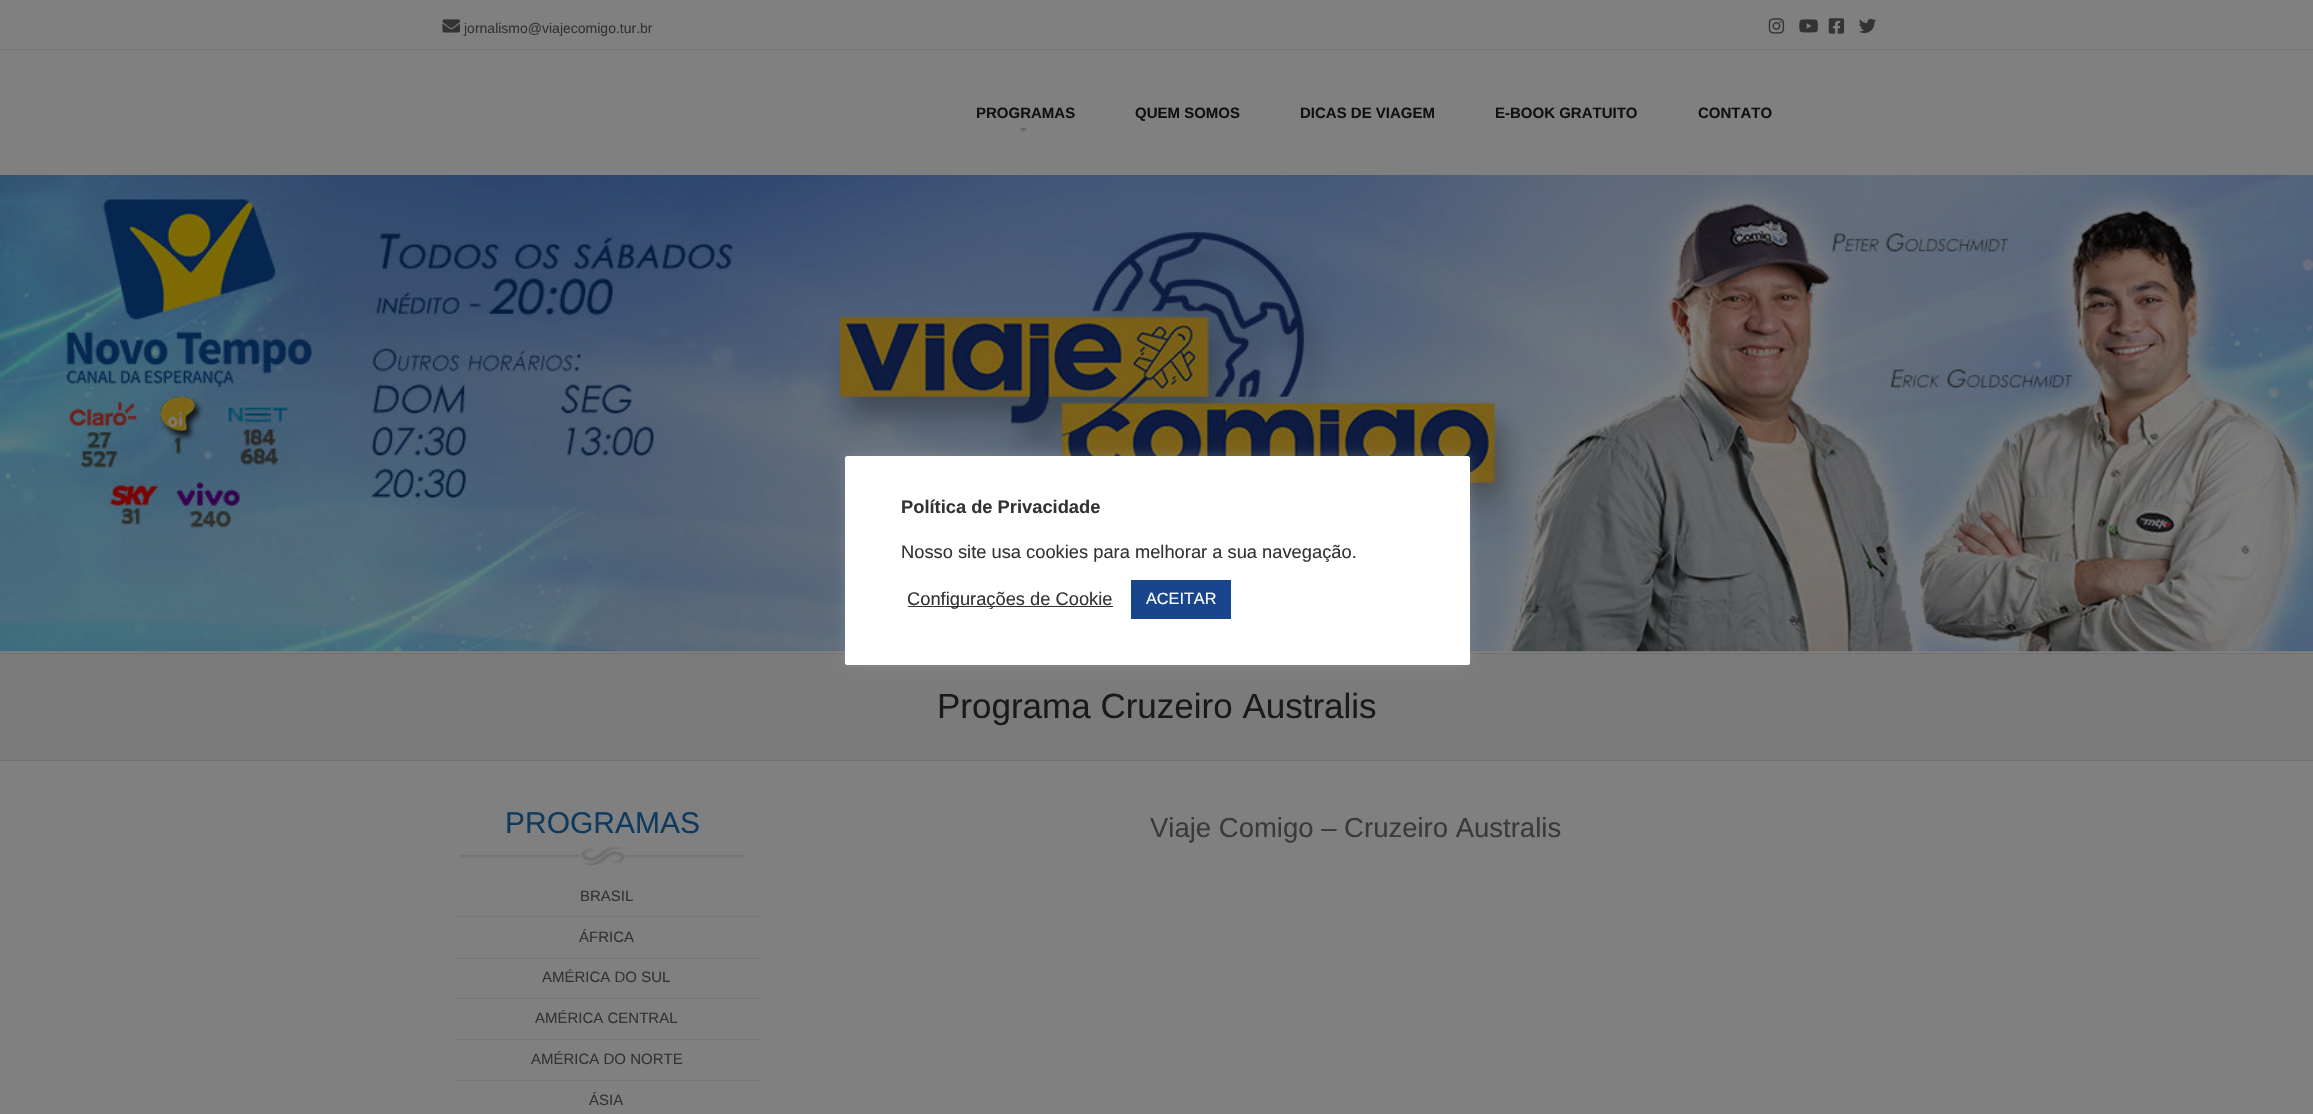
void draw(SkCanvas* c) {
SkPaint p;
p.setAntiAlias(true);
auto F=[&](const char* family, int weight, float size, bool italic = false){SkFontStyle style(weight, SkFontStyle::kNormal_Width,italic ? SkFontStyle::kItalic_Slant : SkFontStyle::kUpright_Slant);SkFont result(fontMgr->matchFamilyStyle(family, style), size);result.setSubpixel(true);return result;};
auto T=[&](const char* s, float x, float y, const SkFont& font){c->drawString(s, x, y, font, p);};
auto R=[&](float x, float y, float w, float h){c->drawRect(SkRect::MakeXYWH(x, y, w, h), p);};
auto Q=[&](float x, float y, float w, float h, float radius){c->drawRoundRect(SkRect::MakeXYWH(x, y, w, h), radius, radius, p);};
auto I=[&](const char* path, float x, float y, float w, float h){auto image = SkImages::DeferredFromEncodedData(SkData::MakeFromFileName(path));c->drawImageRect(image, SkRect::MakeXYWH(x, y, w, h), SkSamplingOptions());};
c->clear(0xff808080);
p.setColor(0xff787878);
R(0,49,2313,1);
I("1.png",442,19,18,14);
auto f1 = F("Liberation Sans",400,14);
p.setColor(0xff333333);
T("jornalismo@viajecomigo.tur.br",464,33,f1);
I("2.png",1768,18,17,16);
I("3.png",1799,19,19,14);
I("4.png",1828,18,17,16);
I("5.png",1859,18,18,16);
auto f2 = F("Liberation Sans",700,15);
p.setColor(0xff111111);
T("PROGRAMAS",976,118,f2);
I("6.png",1020,127,7,5);
T("QUEM SOMOS",1135,118,f2);
T("DICAS DE VIAGEM",1300,118,f2);
T("E-BOOK GRATUITO",1495,118,f2);
T("CONTATO",1698,118,f2);
I("7.png",0,175,2313,477);
p.setColor(0xff7b7b7b);
R(0,654,2313,106);
p.setColor(0xff717171);
R(0,653,2313,1);
R(0,760,2313,1);
auto f3 = F("Liberation Sans",400,35);
p.setColor(0xff1a1a1a);
T("Programa Cruzeiro Australis",937,718,f3);
I("8.png",460,846,285,19);
auto f4 = F("Liberation Sans",400,30);
p.setColor(0xff0f3a5f);
T("PROGRAMAS",505,833,f4);
p.setColor(0xff76797b);
R(453,916,307,1);
auto f5 = F("Liberation Sans",400,15);
p.setColor(0xff333333);
T("BRASIL",580,901,f5);
p.setColor(0xff76797b);
R(453,958,307,1);
p.setColor(0xff333333);
T("ÁFRICA",579,942,f5);
p.setColor(0xff76797b);
R(453,998,307,1);
p.setColor(0xff333333);
T("AMÉRICA DO SUL",542,982,f5);
p.setColor(0xff76797b);
R(453,1039,307,1);
p.setColor(0xff333333);
T("AMÉRICA CENTRAL",535,1023,f5);
p.setColor(0xff76797b);
R(453,1080,307,1);
p.setColor(0xff333333);
T("AMÉRICA DO NORTE",531,1064,f5);
T("ÁSIA",589,1105,f5);
auto f6 = F("Liberation Sans",400,27.5);
p.setColor(0xff3a3a3a);
T("Viaje Comigo – Cruzeiro Australis",1150,837,f6);
p.setColor(0x4dacabab);
p.setMaskFilter(SkMaskFilter::MakeBlur(kNormal_SkBlurStyle, 6));
c->drawRoundRect(SkRect::MakeXYWH(845,455,625,209),2.5,2.5,p);
p.setMaskFilter(nullptr);
p.setColor(0xffffffff);
Q(845,456,625,209,2.5);
auto f7 = F("Liberation Sans",700,18.3);
p.setColor(0xff333333);
T("Política de Privacidade",901,513,f7);
auto f8 = F("Liberation Sans",400,18.3);
T("Nosso site usa cookies para melhorar a sua navegação.",901,558,f8);
R(908,606,205,1);
T("Configurações de Cookie",907,605,f8);
p.setColor(0xff19458c);
R(1131,580,100,39);
auto f9 = F("Liberation Sans",400,16.25);
p.setColor(0xffffffff);
T("ACEITAR",1146,604,f9);
}
